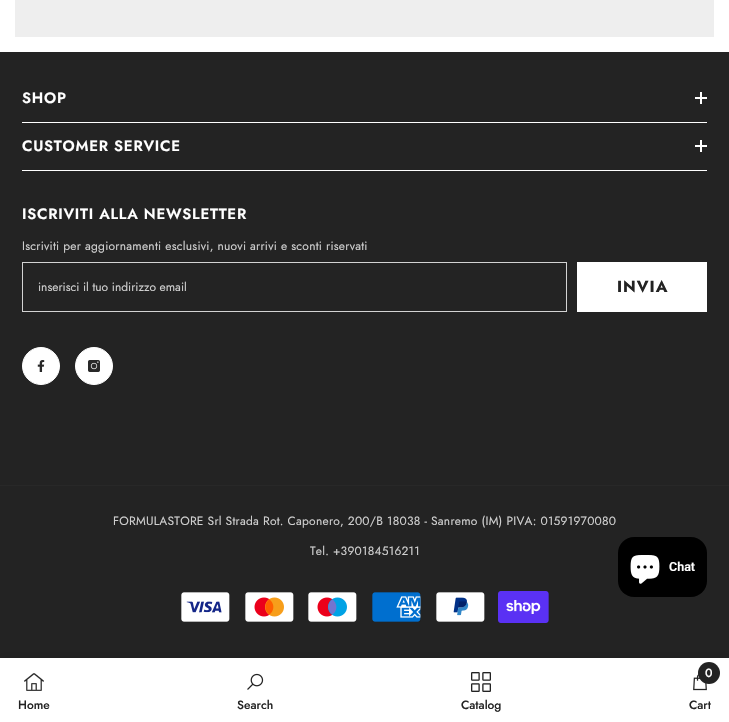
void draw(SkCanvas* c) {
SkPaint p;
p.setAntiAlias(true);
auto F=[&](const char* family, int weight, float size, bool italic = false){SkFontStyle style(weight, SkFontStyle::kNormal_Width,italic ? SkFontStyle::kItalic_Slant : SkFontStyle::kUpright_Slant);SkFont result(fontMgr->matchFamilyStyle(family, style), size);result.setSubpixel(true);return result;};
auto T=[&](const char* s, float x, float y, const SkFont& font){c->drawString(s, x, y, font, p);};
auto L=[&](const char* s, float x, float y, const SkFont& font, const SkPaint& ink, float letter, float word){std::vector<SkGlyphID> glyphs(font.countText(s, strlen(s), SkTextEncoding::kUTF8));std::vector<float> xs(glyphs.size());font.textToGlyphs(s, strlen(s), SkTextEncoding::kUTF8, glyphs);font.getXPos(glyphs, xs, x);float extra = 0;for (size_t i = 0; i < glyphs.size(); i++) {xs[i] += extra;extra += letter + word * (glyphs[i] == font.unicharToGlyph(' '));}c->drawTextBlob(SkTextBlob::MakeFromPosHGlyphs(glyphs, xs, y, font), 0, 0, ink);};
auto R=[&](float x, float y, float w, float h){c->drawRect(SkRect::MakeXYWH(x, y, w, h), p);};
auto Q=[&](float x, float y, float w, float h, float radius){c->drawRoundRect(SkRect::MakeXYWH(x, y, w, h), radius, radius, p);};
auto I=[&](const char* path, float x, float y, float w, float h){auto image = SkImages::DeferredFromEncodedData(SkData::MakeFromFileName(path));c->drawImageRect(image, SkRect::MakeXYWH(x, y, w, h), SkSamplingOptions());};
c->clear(0xffffffff);
p.setColor(0xffeeeeee);
R(15,0,699,37);
p.setColor(0xff232323);
R(0,52,729,433);
p.setColor(0xffffffff);
R(22,122,685,1);
auto f1 = F("Jost",600,15);
L("SHOP",22,103,f1,p,.75,0);
R(700,92,2,12);
R(695,97,12,2);
R(22,170,685,1);
L("CUSTOMER SERVICE",22,151,f1,p,.75,0);
R(700,140,2,12);
R(695,145,12,2);
L("ISCRIVITI ALLA NEWSLETTER",22,219,f1,p,.75,0);
auto f2 = F("Jost",400,12);
p.setColor(0xffcfcfcf);
L("Iscriviti per aggiornamenti esclusivi, nuovi arrivi e sconti riservati",22,250,f2,p,.25,0);
p.setStroke(true);
p.setStrokeWidth(1);
p.setColor(0xffd3d3d3);
c->drawRect(SkRect::MakeXYWH(22.5,262.5,544,49),p);
p.setStroke(false);
p.setColor(0xffcfcfcf);
T("inserisci il tuo indirizzo email",38,291,f2);
p.setColor(0xffffffff);
R(577,262,130,50);
auto f3 = F("Jost",700,16);
p.setColor(0xff232323);
L("INVIA",617,292,f3,p,1,0);
p.setColor(0xffffffff);
c->drawCircle(41,366,18.5,p);
p.setStroke(true);
c->drawCircle(41,366,18.5,p);
I("1.png",37,360,8,12);
p.setStroke(false);
c->drawCircle(94,366,18.5,p);
p.setStroke(true);
c->drawCircle(94,366,18.5,p);
I("2.png",88,360,12,12);
p.setStroke(false);
p.setColor(0xff232323);
R(0,486,729,172);
p.setColor(0xff282828);
R(0,485,729,1);
p.setColor(0xffcfcfcf);
L("FORMULASTORE Srl Strada Rot. Caponero, 200/B 18038 - Sanremo (IM) PIVA: 01591970080",113,525,f2,p,.25,0);
L("Tel. +390184516211",310,555,f2,p,.25,0);
I("3.png",181,592,49,30);
I("4.png",245,592,49,30);
I("5.png",308,592,49,30);
I("6.png",372,592,49,30);
I("7.png",436,592,49,30);
I("8.png",498,591,51,32);
p.setColor(0x1f000000);
p.setMaskFilter(SkMaskFilter::MakeBlur(kNormal_SkBlurStyle, 4.5));
c->drawRect(SkRect::MakeXYWH(0,658,729,64),p);
p.setMaskFilter(nullptr);
p.setColor(0xffffffff);
R(0,658,729,64);
I("9.png",24,673,20,18);
auto f4 = F("Jost",500,12);
p.setColor(0xff232323);
T("Home",18,709,f4);
I("10.png",247,673,17,17);
T("Search",237,709,f4);
I("11.png",471,672,20,20);
T("Catalog",461,709,f4);
I("12.png",693,674,14,17);
c->drawCircle(709,673,11,p);
p.setColor(0xffffffff);
T("0",705,677,f4);
p.setColor(0xff232323);
T("Cart",689,709,f4);
p.setColor(0xff000000);
Q(618,537,89,60,16);
I("13.png",630,555,30,29);
auto f5 = F("Roboto",600,12.5);
p.setColor(0xffffffff);
T("Chat",669,571,f5);
}
